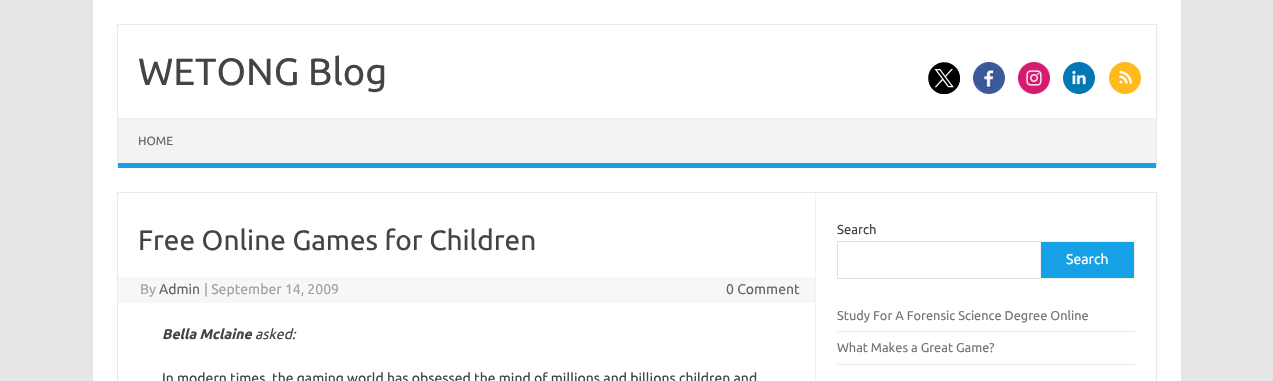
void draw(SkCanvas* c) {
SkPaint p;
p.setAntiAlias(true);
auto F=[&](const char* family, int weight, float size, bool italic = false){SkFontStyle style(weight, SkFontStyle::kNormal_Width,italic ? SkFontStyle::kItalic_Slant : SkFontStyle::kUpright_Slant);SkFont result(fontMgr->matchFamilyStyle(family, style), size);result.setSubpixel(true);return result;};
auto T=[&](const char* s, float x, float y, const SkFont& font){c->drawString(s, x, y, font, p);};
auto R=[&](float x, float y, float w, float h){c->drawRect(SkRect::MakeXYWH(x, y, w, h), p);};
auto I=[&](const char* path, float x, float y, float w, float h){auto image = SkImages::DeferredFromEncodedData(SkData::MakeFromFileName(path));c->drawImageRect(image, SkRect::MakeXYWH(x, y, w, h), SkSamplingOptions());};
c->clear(0xffe6e6e6);
p.setColor(0xffffffff);
R(93,0,1088,381);
p.setColor(0xffe9e9e9);
R(117,24,1040,1);
R(1156,24,1,144);
R(117,24,1,144);
auto f1 = F("Ubuntu",400,38);
p.setColor(0xff444444);
T("WETONG Blog",138,85,f1);
I("1.png",928,62,32,32);
I("2.png",973,62,32,32);
I("3.png",1018,62,32,32);
I("4.png",1063,62,32,32);
I("5.png",1109,62,32,32);
p.setColor(0xfff3f3f3);
R(118,119,1038,44);
p.setColor(0xffededed);
R(118,118,1038,1);
p.setColor(0xff16a1e7);
R(118,163,1038,5);
auto f2 = F("Ubuntu",400,12);
p.setColor(0xff666666);
T("HOME",138,145,f2);
p.setStroke(true);
p.setStrokeWidth(1);
p.setColor(0xffe9e9e9);
c->drawRect(SkRect::MakeXYWH(117.5,192.5,1039,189),p);
p.setStroke(false);
p.setColor(0xfff1f1f1);
R(815,193,1,188);
auto f3 = F("Ubuntu",400,28);
p.setColor(0xff444444);
T("Free Online Games for Children",138,250,f3);
p.setColor(0xfff7f7f7);
R(118,277,697,26);
auto f4 = F("Ubuntu",400,14);
p.setColor(0xffa2a2a2);
T("By",140,294,f4);
p.setColor(0xff666666);
T("Admin",159,294,f4);
p.setColor(0xffa2a2a2);
T("| September 14, 2009",204,294,f4);
p.setColor(0xff666666);
T("0 Comment",726,294,f4);
auto f5 = F("Ubuntu",700,14,true);
p.setColor(0xff444444);
T("Bella Mclaine",162,339,f5);
auto f6 = F("Ubuntu",400,14,true);
T("asked:",255,339,f6);
T("In modern times, the gaming world has obsessed the mind of millions and billions children and",162,383,f4);
auto f7 = F("Ubuntu",400,13);
T("Search",837,234,f7);
p.setStroke(true);
p.setColor(0xffe1e1e1);
c->drawRect(SkRect::MakeXYWH(837.5,241.5,204,37),p);
p.setStroke(false);
p.setColor(0xff16a1e7);
c->drawRect(SkRect::MakeXYWH(1040.5,241.5,94,37),p);
p.setStroke(true);
p.setColor(0xfff1f1f1);
c->drawRect(SkRect::MakeXYWH(1040.5,241.5,94,37),p);
p.setStroke(false);
p.setColor(0xffffffff);
T("Search",1066,264,f4);
p.setColor(0xffe9e9e9);
R(837,331,298,1);
auto f8 = F("Ubuntu",400,12.75);
p.setColor(0xff757575);
T("Study For A Forensic Science Degree Online",837,320,f8);
p.setColor(0xffe9e9e9);
R(837,364,298,1);
p.setColor(0xff757575);
T("What Makes a Great Game?",837,352,f8);
}
